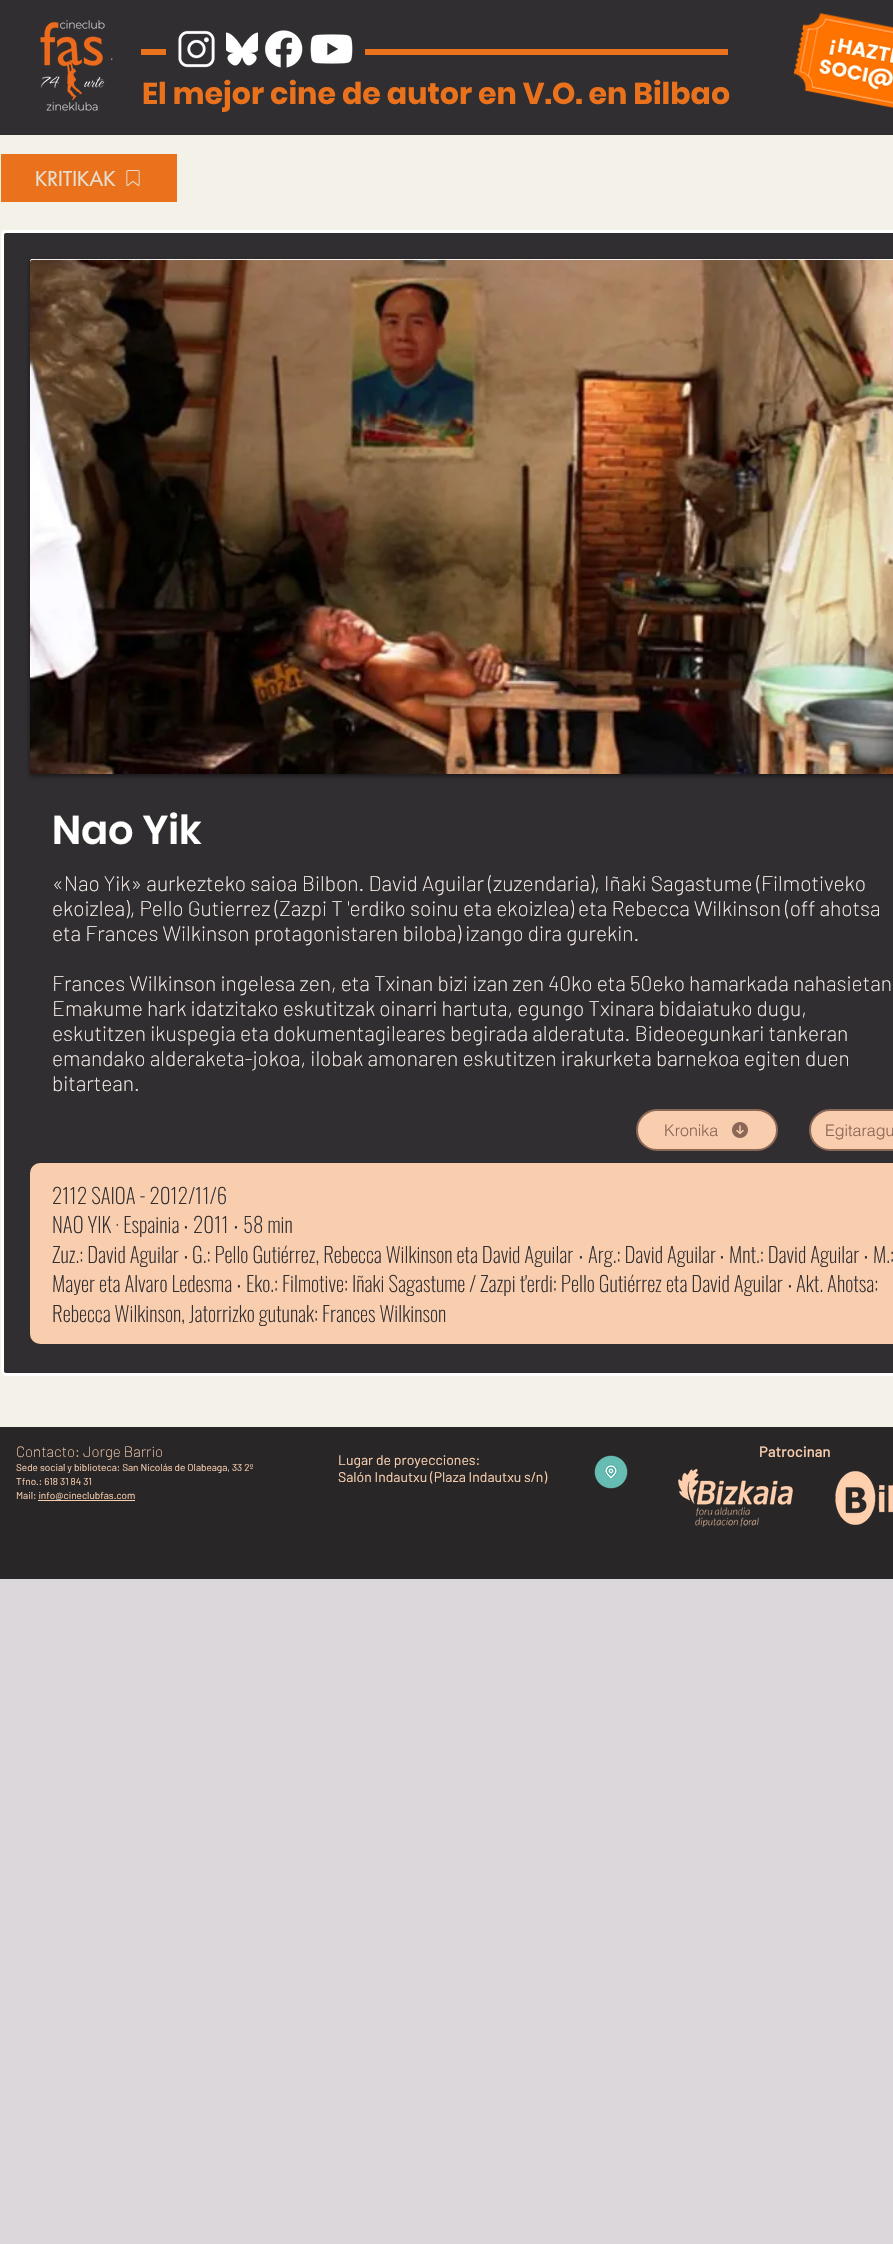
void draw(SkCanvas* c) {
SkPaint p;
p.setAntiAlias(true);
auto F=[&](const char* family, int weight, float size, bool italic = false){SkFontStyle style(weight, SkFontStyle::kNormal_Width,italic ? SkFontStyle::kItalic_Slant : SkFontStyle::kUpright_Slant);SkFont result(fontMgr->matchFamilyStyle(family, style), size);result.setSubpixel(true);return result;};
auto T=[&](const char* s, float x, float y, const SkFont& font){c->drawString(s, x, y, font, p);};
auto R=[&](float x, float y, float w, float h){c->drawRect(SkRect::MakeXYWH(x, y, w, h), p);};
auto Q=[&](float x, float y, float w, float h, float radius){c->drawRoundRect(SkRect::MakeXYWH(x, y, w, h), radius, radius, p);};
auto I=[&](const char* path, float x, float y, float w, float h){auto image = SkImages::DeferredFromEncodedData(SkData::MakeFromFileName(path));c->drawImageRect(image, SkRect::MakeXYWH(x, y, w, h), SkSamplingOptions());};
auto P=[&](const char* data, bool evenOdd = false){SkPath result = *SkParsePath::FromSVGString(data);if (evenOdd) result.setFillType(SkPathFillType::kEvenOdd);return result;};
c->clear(0xffdbd7db);
p.setColor(0xff312e31);
R(0,0,893,135);
I("1.png",40,20,73,91);
p.setColor(0xffeb721c);
R(141,49,25,6);
I("2.png",178,30,37,38);
I("3.png",226,32,32,34);
I("4.png",264,30,39,38);
I("5.png",310,34,43,30);
R(365,49,363,6);
I("6.png",793,13,100,96);
auto f1 = F("Poppins",700,30);
T("El mejor cine de autor en V.O. en Bilbao",142,104,f1);
p.setColor(0xfff4f1e8);
R(0,135,893,1292);
p.setColor(0xffeb721c);
R(1,154,176,48);
auto f2 = F("futura",400,20);
p.setColor(0xffe6e0d3);
T("KRITIKAK",35,186,f2);
I("7.png",126,170,14,16);
p.setColor(0xff312e31);
c->drawRoundRect(SkRect::MakeXYWH(2.5,231.5,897,1143),3.5,3.5,p);
p.setStroke(true);
p.setStrokeWidth(3);
p.setColor(0xffffffff);
c->drawRoundRect(SkRect::MakeXYWH(2.5,231.5,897,1143),3.5,3.5,p);
p.setStroke(false);
p.setColor(0x87000000);
p.setMaskFilter(SkMaskFilter::MakeBlur(kNormal_SkBlurStyle, 2.5));
c->drawRoundRect(SkRect::MakeXYWH(30,261,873,515),2,2,p);
p.setMaskFilter(nullptr);
I("8.png",30,259,863,515);
p.setColor(0xebffffff);
c->drawPath(P("M32 260c-1 0-2 1-2 2c0-1 0-3 2-3h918l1 2v1c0-1-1-2-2-2z"),p);
auto f3 = F("Poppins",600,40);
p.setColor(0xfffffffe);
T("Nao Yik",52,844,f3);
auto f4 = F("Barlow",200,21);
p.setColor(0xfffff5f0);
T("«Nao Yik» aurkezteko saioa Bilbon. David Aguilar (zuzendaria), Iñaki Sagastume (Filmotiveko",52,891,f4);
T("ekoizlea), Pello Gutierrez (Zazpi T 'erdiko soinu eta ekoizlea) eta Rebecca Wilkinson (off ahotsa",52,916,f4);
T("eta Frances Wilkinson protagonistaren biloba) izango dira gurekin.",52,941,f4);
T("Frances Wilkinson ingelesa zen, eta Txinan bizi izan zen 40ko eta 50eko hamarkada nahasietan",52,991,f4);
T("Emakume hark idatzitako eskutitzak oinarri hartuta, egungo Txinara bidaiatuko dugu,",52,1016,f4);
T("eskutitzen ikuspegia eta dokumentagileares begirada alderatuta. Bideoegunkari tankeran",52,1041,f4);
T("emandako alderaketa-jokoa, ilobak amonaren eskutitzen irakurketa barnekoa egiten duen",52,1066,f4);
T("bitartean.",52,1091,f4);
p.setColor(0xfff8ceaf);
c->drawRoundRect(SkRect::MakeXYWH(637,1110,140,40),20,20,p);
p.setStroke(true);
p.setStrokeWidth(2);
p.setColor(0xff8b6755);
c->drawRoundRect(SkRect::MakeXYWH(637,1110,140,40),20,20,p);
auto f5 = F("helvetica",300,16);
p.setStroke(false);
T("Kronika",664,1136,f5);
I("9.png",732,1122,16,16);
p.setColor(0xfff8ceaf);
c->drawRoundRect(SkRect::MakeXYWH(810,1110,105,40),20,20,p);
p.setStroke(true);
p.setColor(0xff8b6755);
c->drawRoundRect(SkRect::MakeXYWH(810,1110,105,40),20,20,p);
p.setStroke(false);
T("Egitaragu",825,1136,f5);
p.setColor(0xfff8ceaf);
Q(30,1163,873,181,10);
auto f6 = F("Oswald",200,21);
p.setColor(0xff312e31);
T("2112 SAIOA - 2012/11/6",52,1204,f6);
T("NAO YIK · Espainia",52,1233,f6);
auto f7 = F("Liberation Sans",400,21);
T("∙",183,1233,f7);
T("2011",193,1233,f6);
T("∙",233,1233,f7);
T("58 min",243,1233,f6);
T("Zuz.: David Aguilar",52,1263,f6);
T("∙",183,1263,f7);
T("G.: Pello Gutiérrez, Rebecca Wilkinson eta David Aguilar",192,1263,f6);
T("∙",578,1263,f7);
T("Arg.: David Aguilar",588,1263,f6);
T("∙",719,1263,f7);
T("Mnt.: David Aguilar",729,1263,f6);
T("∙",863,1263,f7);
T("M.:",873,1263,f6);
T("Mayer eta Alvaro Ledesma",52,1292,f6);
T("∙",236,1292,f7);
T("Eko.: Filmotive: Iñaki Sagastume / Zazpi t'erdi: Pello Gutiérrez eta David Aguilar",246,1292,f6);
T("∙",787,1292,f7);
T("Akt. Ahotsa:",796,1292,f6);
T("Rebecca Wilkinson, Jatorrizko gutunak: Frances Wilkinson",52,1322,f6);
p.setColor(0xff282626);
R(0,1427,893,152);
auto f8 = F("Barlow",200,15);
p.setColor(0xfff8ceaf);
T("Contacto: Jorge Barrio",16,1457,f8);
auto f9 = F("Barlow",400,10);
T("Sede social y biblioteca: San Nicolás de Olabeaga, 33 2º",16,1471,f9);
T("Tfno.: 618 31 84 31",16,1485,f9);
T("Mail: info@cineclubfas.com",16,1499,f9);
R(38,1500,97,1);
auto f10 = F("Barlow",500,15);
T("Patrocinan",759,1457,f10);
I("10.png",678,1468,115,59);
I("11.png",835,1471,58,54);
auto f11 = F("Barlow",400,14);
T("Lugar de proyecciones:",338,1465,f11);
T("Salón Indautxu (Plaza Indautxu s/n)",338,1482,f11);
I("12.png",594,1455,34,34);
}
